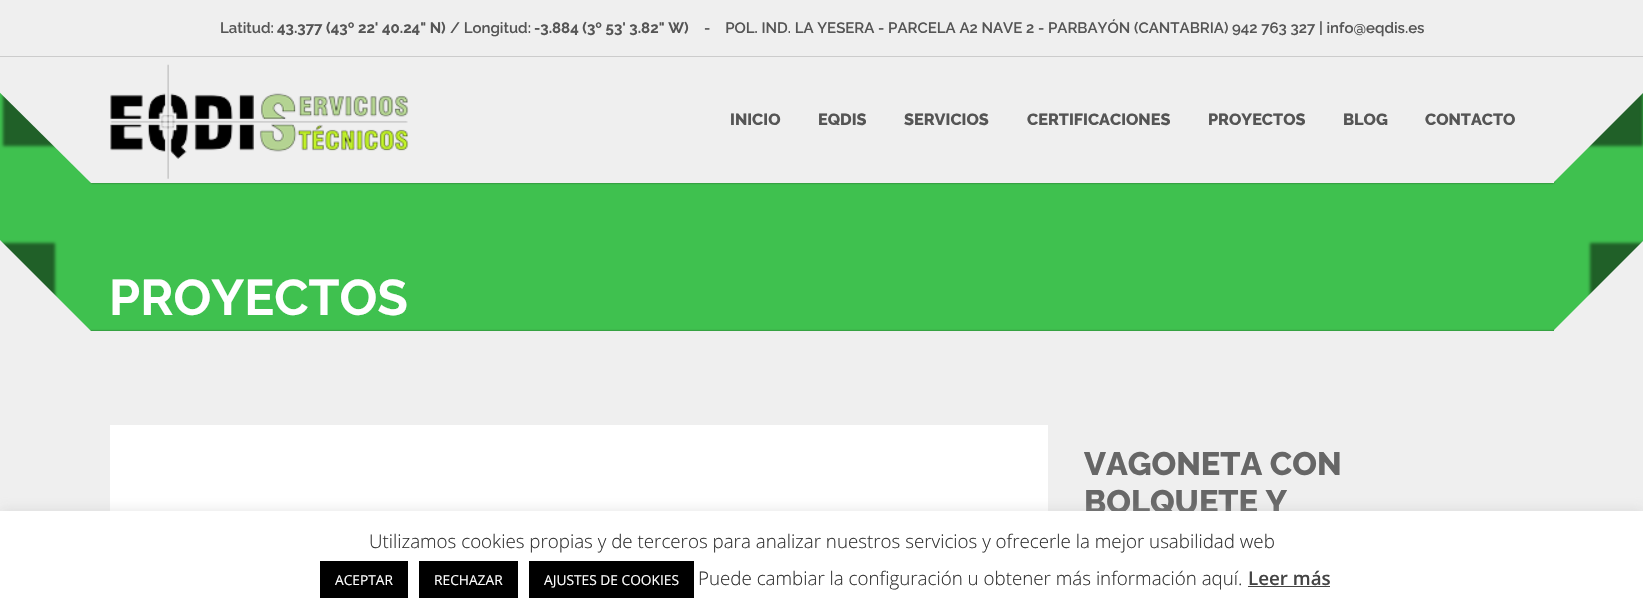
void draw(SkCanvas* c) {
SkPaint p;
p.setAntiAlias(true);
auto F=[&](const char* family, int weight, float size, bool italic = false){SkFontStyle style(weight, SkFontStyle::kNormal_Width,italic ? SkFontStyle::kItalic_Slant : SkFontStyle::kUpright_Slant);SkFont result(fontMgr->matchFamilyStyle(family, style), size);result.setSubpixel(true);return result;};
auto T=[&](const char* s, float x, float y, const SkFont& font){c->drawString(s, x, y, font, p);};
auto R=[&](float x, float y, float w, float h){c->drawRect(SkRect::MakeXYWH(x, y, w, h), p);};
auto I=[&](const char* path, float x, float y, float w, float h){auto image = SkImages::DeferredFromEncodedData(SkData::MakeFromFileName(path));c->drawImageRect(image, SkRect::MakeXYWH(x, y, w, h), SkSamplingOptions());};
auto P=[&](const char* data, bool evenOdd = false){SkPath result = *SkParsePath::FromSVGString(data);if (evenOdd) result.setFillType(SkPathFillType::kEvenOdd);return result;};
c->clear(0xff3fc14f);
p.setColor(0x80000000);
p.setMaskFilter(SkMaskFilter::MakeBlur(kNormal_SkBlurStyle, 1));
c->drawRect(SkRect::MakeXYWH(91,58,1463,125),p);
p.setMaskFilter(nullptr);
p.setColor(0xffefefef);
R(91,58,1463,125);
I("1.png",110,64,299,115);
c->save();
c->clipRect(SkRect::MakeXYWH(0,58,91,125));
p.setColor(0x80000000);
p.setMaskFilter(SkMaskFilter::MakeBlur(kNormal_SkBlurStyle, 1.5));
c->drawRect(SkRect::MakeXYWH(3,-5,177,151),p);
p.setMaskFilter(nullptr);
c->restore();
c->save();
c->clipRect(SkRect::MakeXYWH(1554,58,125,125));
p.setMaskFilter(SkMaskFilter::MakeBlur(kNormal_SkBlurStyle, 1.5));
c->drawRect(SkRect::MakeXYWH(1465,-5,178,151),p);
p.setMaskFilter(nullptr);
c->restore();
p.setColor(0xffefefef);
R(0,0,1643,58);
p.setColor(0xffcccccc);
R(0,56,1643,1);
auto f1 = F("Raleway",600,15);
p.setColor(0xff555555);
T("Latitud:",220,33,f1);
auto f2 = F("Raleway",700,15);
T("43.377 (43º 22' 40.24\" N)",277,33,f2);
T("/ Longitud:",450,33,f1);
T("-3.884 (3º 53' 3.82\" W)",534,33,f2);
T("-    POL. IND. LA YESERA - PARCELA A2 NAVE 2 - PARBAYÓN (CANTABRIA) 942 763 327 | info@eqdis.es",704,33,f1);
c->save();
c->clipRect(SkRect::MakeXYWH(0,58,91,125));
p.setColor(0xffefefef);
c->drawPath(P("M91-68l125 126l-125 125l-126-125z"),p);
c->restore();
auto f3 = F("Raleway",800,16.25);
p.setColor(0xff555555);
T("INICIO",730,125,f3);
T("EQDIS",818,125,f3);
T("SERVICIOS",904,125,f3);
T("CERTIFICACIONES",1027,125,f3);
T("PROYECTOS",1208,125,f3);
T("BLOG",1343,125,f3);
T("CONTACTO",1425,125,f3);
c->save();
c->clipRect(SkRect::MakeXYWH(1554,58,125,125));
p.setColor(0xffefefef);
c->drawPath(P("M1553-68l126 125l-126 126l-125-125z"),p);
c->restore();
auto f4 = F("Raleway",700,50);
p.setColor(0xffffffff);
T("PROYECTOS",109,315,f4);
p.setColor(0x80000000);
p.setMaskFilter(SkMaskFilter::MakeBlur(kNormal_SkBlurStyle, 1));
c->drawRect(SkRect::MakeXYWH(0,331,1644,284),p);
p.setMaskFilter(nullptr);
p.setColor(0xffefefef);
R(0,331,1643,180);
c->save();
c->clipRect(SkRect::MakeXYWH(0,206,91,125));
p.setColor(0x80000000);
p.setMaskFilter(SkMaskFilter::MakeBlur(kNormal_SkBlurStyle, 1.5));
c->drawRect(SkRect::MakeXYWH(-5,243,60,177),p);
p.setMaskFilter(nullptr);
c->restore();
c->save();
c->clipRect(SkRect::MakeXYWH(0,206,91,125));
p.setColor(0xffefefef);
c->drawPath(P("M-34 206l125 125l-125 126l-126-126z"),p);
c->restore();
c->save();
c->clipRect(SkRect::MakeXYWH(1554,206,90,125));
p.setColor(0x80000000);
p.setMaskFilter(SkMaskFilter::MakeBlur(kNormal_SkBlurStyle, 1.5));
c->drawRect(SkRect::MakeXYWH(1590,243,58,177),p);
p.setMaskFilter(nullptr);
c->restore();
c->save();
c->clipRect(SkRect::MakeXYWH(1554,206,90,125));
p.setColor(0xffefefef);
c->drawPath(P("M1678 206l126 125l-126 126l-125-126z"),p);
c->restore();
p.setColor(0xffffffff);
R(110,425,938,86);
auto f5 = F("Raleway",800,32.5);
p.setColor(0xff666666);
T("VAGONETA CON",1084,475,f5);
T("BOLQUETE Y",1084,513,f5);
p.setColor(0x4dacabab);
p.setMaskFilter(SkMaskFilter::MakeBlur(kNormal_SkBlurStyle, 6));
c->drawRect(SkRect::MakeXYWH(0,510,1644,101),p);
p.setMaskFilter(nullptr);
p.setColor(0xffffffff);
R(0,511,1643,101);
auto f6 = F("Open Sans",300,18.75);
p.setColor(0xff333333);
T("Utilizamos cookies propias y de terceros para analizar nuestros servicios y ofrecerle la mejor usabilidad web",369,548,f6);
p.setColor(0xff000000);
R(320,561,88,37);
auto f7 = F("Open Sans",400,13.75);
p.setColor(0xffffffff);
T("ACEPTAR",335,585,f7);
p.setColor(0xff000000);
R(419,561,99,37);
p.setColor(0xffffffff);
T("RECHAZAR",434,585,f7);
p.setColor(0xff000000);
R(529,561,165,37);
p.setColor(0xffffffff);
T("AJUSTES DE COOKIES",544,585,f7);
p.setColor(0xff333333);
T("Puede cambiar la configuración u obtener más información aquí.",698,585,f6);
auto f8 = F("Open Sans",600,18.75);
p.setColor(0xff444444);
T("Leer más",1248,585,f8);
R(1248,586,82,1);
}
